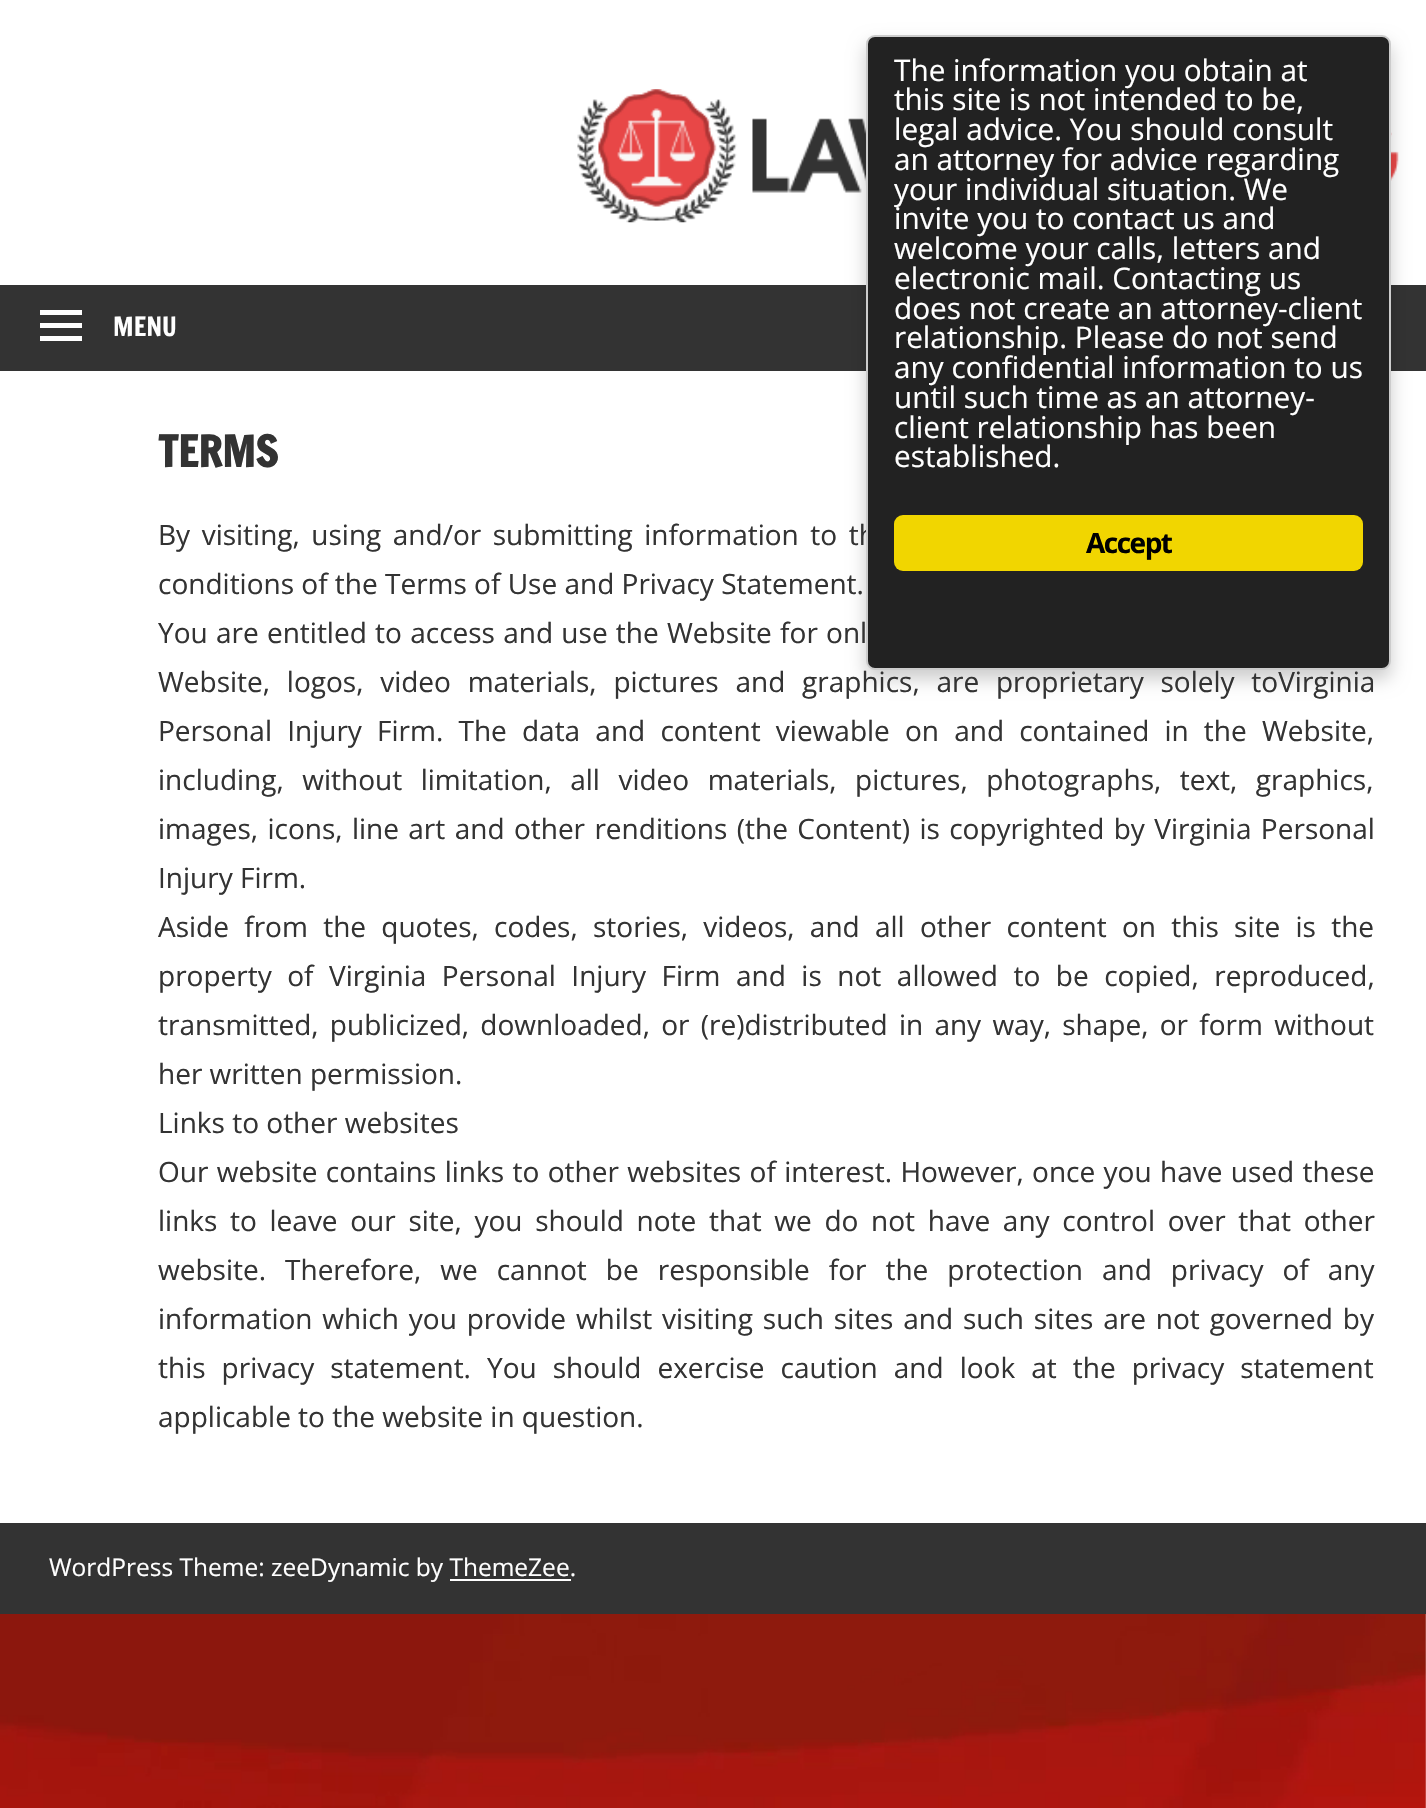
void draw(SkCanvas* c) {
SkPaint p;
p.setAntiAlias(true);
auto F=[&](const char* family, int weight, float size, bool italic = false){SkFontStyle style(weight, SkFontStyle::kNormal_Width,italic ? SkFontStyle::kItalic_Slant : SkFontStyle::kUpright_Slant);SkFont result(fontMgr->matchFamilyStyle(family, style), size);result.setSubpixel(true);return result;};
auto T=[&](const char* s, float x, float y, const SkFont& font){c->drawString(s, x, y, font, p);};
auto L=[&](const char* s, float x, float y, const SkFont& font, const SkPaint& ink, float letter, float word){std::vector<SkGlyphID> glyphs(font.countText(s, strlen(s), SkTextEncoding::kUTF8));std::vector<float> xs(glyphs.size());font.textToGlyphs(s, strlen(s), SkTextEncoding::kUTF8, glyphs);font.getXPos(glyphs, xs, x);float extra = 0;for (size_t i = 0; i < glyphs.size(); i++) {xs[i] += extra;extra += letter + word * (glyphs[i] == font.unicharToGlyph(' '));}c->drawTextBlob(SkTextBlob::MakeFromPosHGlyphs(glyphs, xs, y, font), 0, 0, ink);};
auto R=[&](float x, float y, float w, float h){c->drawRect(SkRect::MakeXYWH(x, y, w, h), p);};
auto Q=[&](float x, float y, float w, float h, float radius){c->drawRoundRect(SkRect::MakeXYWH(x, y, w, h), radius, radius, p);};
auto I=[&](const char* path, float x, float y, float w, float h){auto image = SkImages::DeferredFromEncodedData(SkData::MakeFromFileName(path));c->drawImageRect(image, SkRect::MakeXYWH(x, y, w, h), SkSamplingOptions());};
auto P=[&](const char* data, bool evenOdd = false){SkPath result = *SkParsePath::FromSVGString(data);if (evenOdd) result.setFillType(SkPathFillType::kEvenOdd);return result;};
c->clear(0xffffffff);
I("1.png",0,1614,1426,194);
I("2.png",577,89,822,134);
p.setColor(0xff333333);
R(0,285,1426,86);
p.setColor(0x33000000);
p.setMaskFilter(SkMaskFilter::MakeBlur(kNormal_SkBlurStyle, 9));
c->drawRoundRect(SkRect::MakeXYWH(866,44,525,635),9,9,p);
p.setMaskFilter(nullptr);
auto f1 = F("Open Sans",400,28);
p.setColor(0xff333333);
L("By visiting, using and/or submitting information to th",158,545,f1,p,0,4.25);
p.setColor(0xff222222);
c->drawRoundRect(SkRect::MakeXYWH(867,36,523,633),8,8,p);
p.setStroke(true);
p.setStrokeWidth(2);
p.setColor(0xffcccccc);
c->drawRoundRect(SkRect::MakeXYWH(867,36,523,633),8,8,p);
auto f2 = F("Open Sans",400,29.75);
p.setStroke(false);
p.setColor(0xffffffff);
T("The information you obtain at",894,81,f2);
T("this site is not intended to be,",894,110,f2);
T("legal advice. You should consult",894,140,f2);
T("an attorney for advice regarding",894,170,f2);
T("your individual situation. We",894,200,f2);
T("invite you to contact us and",894,229,f2);
T("welcome your calls, letters and",894,259,f2);
T("electronic mail. Contacting us",894,289,f2);
T("does not create an attorney-client",894,319,f2);
T("relationship. Please do not send",894,348,f2);
T("any confidential information to us",894,378,f2);
T("until such time as an attorney-",894,408,f2);
T("client relationship has been",894,438,f2);
T("established.",894,467,f2);
p.setColor(0xfff1d600);
Q(894,515,469,56,9);
auto f3 = F("Open Sans",700,28);
p.setColor(0xff000000);
L("Accept",1086,553,f3,p,-1.5,0);
p.setColor(0xffffffff);
c->drawPath(P("M40 341v-5h42v5zm0-31h42v5h-42zm0 18v-5h42v5z"),p);
auto f4 = F("Francois One",400,26);
T("MENU",113,336,f4);
auto f5 = F("Francois One",700,42);
p.setColor(0xff333333);
T("TERMS",158,467,f5);
T("conditions of the Terms of Use and Privacy Statement.",158,594,f1);
L("You are entitled to access and use the Website for onl",158,643,f1,p,0,1);
L("Website, logos, video materials, pictures and graphics, are proprietary solely toVirginia",158,692,f1,p,0,9.5);
L("Personal Injury Firm. The data and content viewable on and contained in the Website,",158,741,f1,p,0,7.9);
L("including, without limitation, all video materials, pictures, photographs, text, graphics,",158,790,f1,p,0,11.25);
L("images, icons, line art and other renditions (the Content) is copyrighted by Virginia Personal",158,839,f1,p,0,2.1);
T("Injury Firm.",158,888,f1);
L("Aside from the quotes, codes, stories, videos, and all other content on this site is the",158,937,f1,p,0,8);
L("property of Virginia Personal Injury Firm and is not allowed to be copied, reproduced,",158,986,f1,p,0,8.25);
L("transmitted, publicized, downloaded, or (re)distributed in any way, shape, or form without",158,1035,f1,p,0,4);
T("her written permission.",158,1084,f1);
T("Links to other websites",158,1133,f1);
L("Our website contains links to other websites of interest. However, once you have used these",158,1182,f1,p,0,1.1);
L("links to leave our site, you should note that we do not have any control over that other",158,1231,f1,p,0,5.4);
L("website. Therefore, we cannot be responsible for the protection and privacy of any",158,1280,f1,p,0,11.75);
L("information which you provide whilst visiting such sites and such sites are not governed by",158,1329,f1,p,0,2.6);
L("this privacy statement. You should exercise caution and look at the privacy statement",158,1378,f1,p,0,8.75);
T("applicable to the website in question.",158,1427,f1);
R(0,1523,1426,91);
auto f6 = F("Open Sans",400,24.5);
p.setColor(0xffffffff);
T("WordPress Theme: zeeDynamic by ThemeZee.",49,1576,f6);
R(450,1579,121,2);
}
